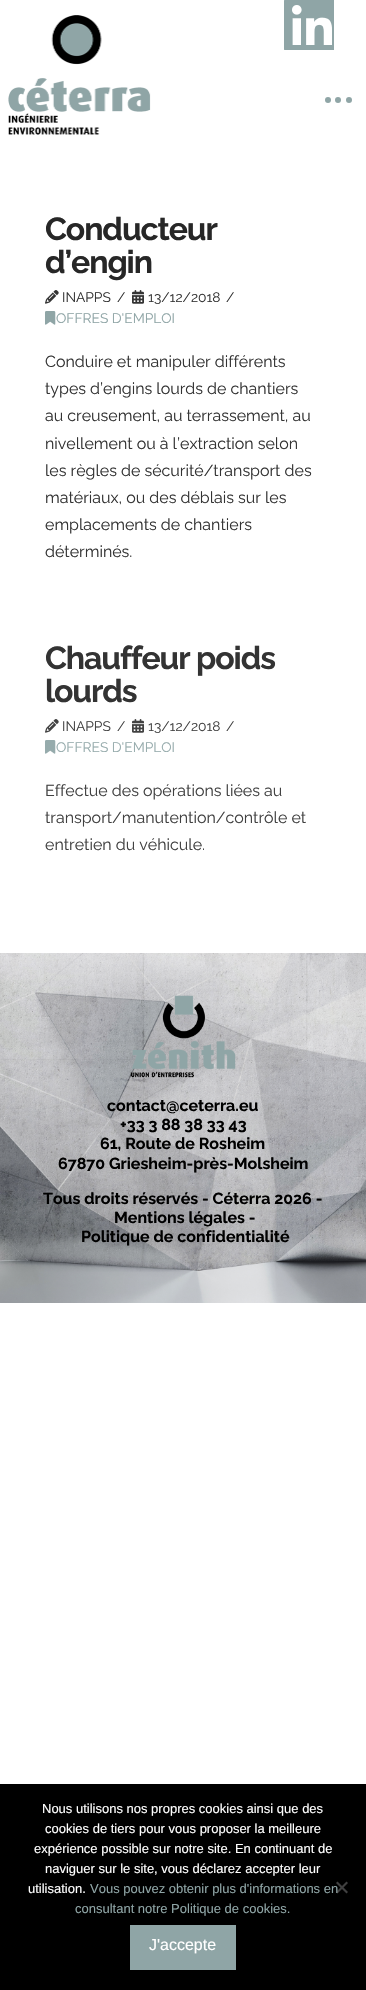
void draw(SkCanvas* c) {
SkPaint p;
p.setAntiAlias(true);
auto F=[&](const char* family, int weight, float size, bool italic = false){SkFontStyle style(weight, SkFontStyle::kNormal_Width,italic ? SkFontStyle::kItalic_Slant : SkFontStyle::kUpright_Slant);SkFont result(fontMgr->matchFamilyStyle(family, style), size);result.setSubpixel(true);return result;};
auto T=[&](const char* s, float x, float y, const SkFont& font){c->drawString(s, x, y, font, p);};
auto L=[&](const char* s, float x, float y, const SkFont& font, const SkPaint& ink, float letter, float word){std::vector<SkGlyphID> glyphs(font.countText(s, strlen(s), SkTextEncoding::kUTF8));std::vector<float> xs(glyphs.size());font.textToGlyphs(s, strlen(s), SkTextEncoding::kUTF8, glyphs);font.getXPos(glyphs, xs, x);float extra = 0;for (size_t i = 0; i < glyphs.size(); i++) {xs[i] += extra;extra += letter + word * (glyphs[i] == font.unicharToGlyph(' '));}c->drawTextBlob(SkTextBlob::MakeFromPosHGlyphs(glyphs, xs, y, font), 0, 0, ink);};
auto R=[&](float x, float y, float w, float h){c->drawRect(SkRect::MakeXYWH(x, y, w, h), p);};
auto I=[&](const char* path, float x, float y, float w, float h){auto image = SkImages::DeferredFromEncodedData(SkData::MakeFromFileName(path));c->drawImageRect(image, SkRect::MakeXYWH(x, y, w, h), SkSamplingOptions());};
auto P=[&](const char* data, bool evenOdd = false){SkPath result = *SkParsePath::FromSVGString(data);if (evenOdd) result.setFillType(SkPathFillType::kEvenOdd);return result;};
c->clear(0xffffffff);
I("1.png",284,0,50,50);
I("2.png",8,15,143,120);
p.setColor(0xff8fa5a6);
c->drawCircle(328,100,3,p);
c->drawCircle(338,100,3,p);
c->drawCircle(349,100,3,p);
auto f1 = F("Raleway",700,32);
p.setColor(0xff272727);
L("Conducteur",45,240,f1,p,-1.1,0);
L("d’engin",45,273,f1,p,-1.1,0);
I("3.png",45,290,14,14);
auto f2 = F("Raleway",400,13.75);
p.setColor(0xff333333);
T("INAPPS",62,302,f2);
T("/",117,302,f2);
I("4.png",132,290,12,14);
T("13/12/2018",148,302,f2);
T("/",226,302,f2);
I("5.png",45,311,11,14);
p.setColor(0xff8fa5a6);
T("OFFRES D'EMPLOI",56,323,f2);
auto f3 = F("Raleway",400,16);
p.setColor(0xff333333);
T("Conduire et manipuler différents",45,367,f3);
T("types d’engins lourds de chantiers",45,394,f3);
T("au creusement, au terrassement, au",45,421,f3);
T("nivellement ou à l’extraction selon",45,449,f3);
T("les règles de sécurité/transport des",45,476,f3);
T("matériaux, ou des déblais sur les",45,503,f3);
T("emplacements de chantiers",45,530,f3);
T("déterminés.",45,557,f3);
L("Chauffeur poids",45,669,f1,p,-1.1,0);
L("lourds",45,702,f1,p,-1.1,0);
I("6.png",45,719,14,14);
p.setColor(0xff404040);
T("INAPPS",62,731,f2);
T("/",117,731,f2);
I("7.png",132,719,12,14);
T("13/12/2018",148,731,f2);
T("/",226,731,f2);
I("8.png",45,740,11,14);
p.setColor(0xff96abac);
T("OFFRES D'EMPLOI",56,752,f2);
p.setColor(0xff404040);
T("Effectue des opérations liées au",45,796,f3);
T("transport/manutention/contrôle et",45,823,f3);
T("entretien du véhicule.",45,850,f3);
I("9.png",0,953,366,350);
I("10.png",130,995,106,83);
auto f4 = F("Raleway",700,16);
p.setColor(0xff000000);
T("contact@ceterra.eu",107,1111,f4);
T("+33 3 88 38 33 43",120,1130,f4);
T("61, Route de Rosheim",100,1149,f4);
T("67870 Griesheim-près-Molsheim",58,1169,f4);
T("Tous droits réservés - Céterra 2026 -",43,1204,f4);
T("Mentions légales -",114,1223,f4);
T("Politique de confidentialité",81,1242,f4);
R(0,1784,366,206);
auto f5 = F("Liberation Sans",400,13);
p.setColor(0xffffffff);
T("Nous utilisons nos propres cookies ainsi que des",42,1813,f5);
T("cookies de tiers pour vous proposer la meilleure",45,1833,f5);
T("expérience possible sur notre site. En continuant de",34,1853,f5);
T("naviguer sur le site, vous déclarez accepter leur",45,1873,f5);
T("utilisation.",28,1893,f5);
p.setColor(0xff8fa5a6);
T("Vous pouvez obtenir plus d'informations en",90,1893,f5);
T("consultant notre Politique de cookies.",75,1913,f5);
p.setColor(0x80808080);
c->drawPath(P("M346.5 1881.5l1.5 1.5l-10.5 10.5l-1.5-1.5z"),p);
p.setColor(0xff404040);
c->drawPath(P("M336 1883l1.5-1.5l10.5 10.5l-1.5 1.5z"),p);
p.setColor(0xff8fa5a6);
R(130,1925,106,45);
auto f6 = F("Liberation Sans",400,16);
p.setColor(0xffffffff);
T("J'accepte",149,1950,f6);
}
